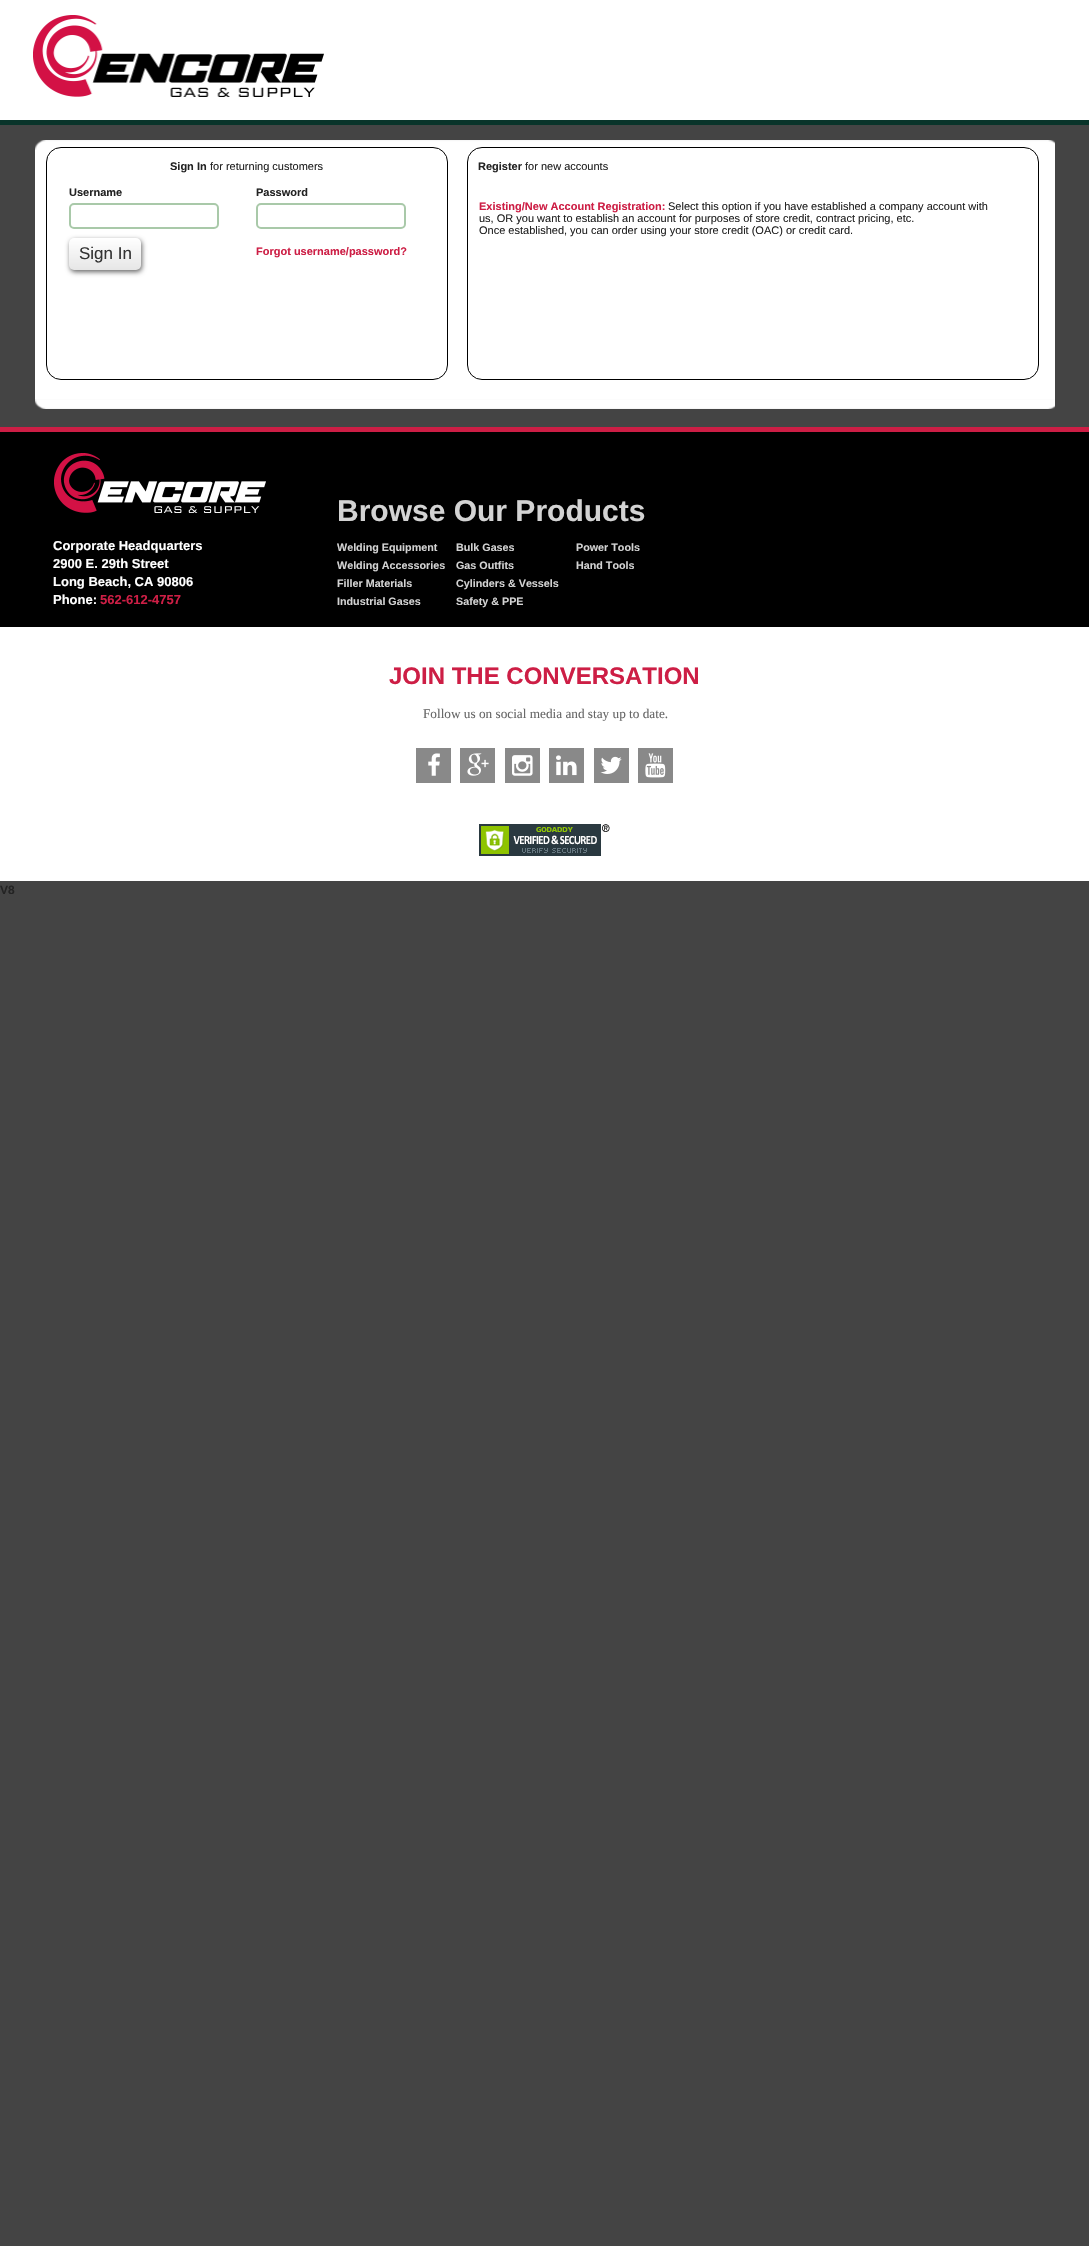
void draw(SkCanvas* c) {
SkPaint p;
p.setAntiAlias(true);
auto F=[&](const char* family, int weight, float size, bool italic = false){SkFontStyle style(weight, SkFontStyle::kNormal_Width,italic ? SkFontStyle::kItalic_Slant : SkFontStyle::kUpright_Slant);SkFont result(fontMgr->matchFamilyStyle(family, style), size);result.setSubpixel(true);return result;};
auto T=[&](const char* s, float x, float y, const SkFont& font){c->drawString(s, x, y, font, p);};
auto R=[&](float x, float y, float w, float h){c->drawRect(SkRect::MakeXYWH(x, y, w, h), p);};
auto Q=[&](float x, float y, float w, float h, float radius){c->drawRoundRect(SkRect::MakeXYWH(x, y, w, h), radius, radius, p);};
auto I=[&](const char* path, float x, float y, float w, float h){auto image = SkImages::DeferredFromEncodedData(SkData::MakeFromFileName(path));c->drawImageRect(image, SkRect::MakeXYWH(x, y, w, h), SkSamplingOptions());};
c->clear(0xff444444);
p.setColor(0xffffffff);
R(0,0,1089,120);
p.setColor(0xff09342a);
R(0,120,1089,5);
I("1.png",33,15,291,82);
I("2.png",35,140,1020,10);
p.setColor(0xffffffff);
R(35,150,1020,249);
p.setStroke(true);
p.setStrokeWidth(1);
p.setColor(0xff000000);
c->drawRoundRect(SkRect::MakeXYWH(46.5,147.5,401,232),14.5,14.5,p);
auto f1 = F("Liberation Sans",700,11);
p.setStroke(false);
p.setColor(0xff232323);
T("Sign In",170,170,f1);
auto f2 = F("Liberation Sans",400,11);
T("for returning customers",210,170,f2);
T("Username",69,196,f1);
T("Password",256,196,f1);
p.setStroke(true);
p.setStrokeWidth(2);
p.setColor(0xffa9c9a9);
c->drawRoundRect(SkRect::MakeXYWH(70,204,148,24),4,4,p);
c->drawRoundRect(SkRect::MakeXYWH(257,204,148,24),4,4,p);
p.setStroke(false);
p.setColor(0xff666666);
p.setMaskFilter(SkMaskFilter::MakeBlur(kNormal_SkBlurStyle, 2.5));
c->drawRoundRect(SkRect::MakeXYWH(70,240,72,32),5,5,p);
p.setMaskFilter(nullptr);
{
const SkColor colors[] = {0xffffffff,0xffe6e6e6};
const float stops[] = {0,1};
const SkPoint ends[] = {{105,238}, {105,270}};
p.setShader(SkGradientShader::MakeLinear(ends, colors, stops, 2, SkTileMode::kClamp));
p.setAlpha(255);
}
Q(69,238,72,32,5);
auto f3 = F("Liberation Sans",400,17);
p.setShader(nullptr);
p.setColor(0xff333333);
T("Sign In",79,259,f3);
p.setColor(0xffcd1e45);
T("Forgot username/password?",256,255,f1);
p.setStroke(true);
p.setStrokeWidth(1);
p.setColor(0xff000000);
c->drawRoundRect(SkRect::MakeXYWH(467.5,147.5,571,232),14.5,14.5,p);
p.setStroke(false);
p.setColor(0xff232323);
T("Register",478,170,f1);
T("for new accounts",525,170,f2);
p.setColor(0xffcd1e45);
T("Existing/New Account Registration:",479,210,f1);
p.setColor(0xff232323);
T("Select this option if you have established a company account with",668,210,f2);
T("us, OR you want to establish an account for purposes of store credit, contract pricing, etc.",479,222,f2);
T("Once established, you can order using your store credit (OAC) or credit card.",479,234,f2);
I("3.png",35,399,1020,10);
p.setColor(0xff000000);
R(0,432,1089,195);
p.setColor(0xffcd1e45);
R(0,427,1089,5);
I("4.png",54,453,212,60);
auto f4 = F("Liberation Sans",700,13);
p.setColor(0xffffffff);
T("Corporate Headquarters",53,550,f4);
T("2900 E. 29th Street",53,568,f4);
T("Long Beach, CA 90806",53,586,f4);
T("Phone:",53,604,f4);
p.setColor(0xffcd1e45);
T("562-612-4757",100,604,f4);
auto f5 = F("Liberation Sans",700,30);
p.setColor(0xffd3d3d3);
T("Browse Our Products",337,521,f5);
auto f6 = F("Liberation Sans",700,10.75);
T("Welding Equipment",337,551,f6);
T("Bulk Gases",456,551,f6);
T("Power Tools",576,551,f6);
T("Welding Accessories",337,569,f6);
T("Gas Outfits",456,569,f6);
T("Hand Tools",576,569,f6);
T("Filler Materials",337,587,f6);
T("Cylinders & Vessels",456,587,f6);
T("Industrial Gases",337,605,f6);
T("Safety & PPE",456,605,f6);
p.setColor(0xffffffff);
R(0,627,1089,254);
auto f7 = F("Liberation Sans",700,24);
p.setColor(0xffcd1e45);
T("JOIN THE CONVERSATION",389,684,f7);
auto f8 = F("Liberation Serif",400,13.25);
p.setColor(0xff666666);
T("Follow us on social media and stay up to date.",423,718,f8);
p.setColor(0xff898989);
R(416,748,35,35);
I("5.png",428,753,12,23);
R(460,748,35,35);
I("6.png",467,753,22,23);
R(505,748,35,35);
I("7.png",512,755,21,21);
R(549,748,35,35);
I("8.png",556,755,21,21);
R(594,748,35,35);
I("9.png",600,756,22,18);
R(638,748,35,35);
I("10.png",645,753,21,25);
I("11.png",479,824,131,32);
auto f9 = F("Liberation Sans",700,12);
p.setColor(0xff232323);
T("V8",0,894,f9);
}
